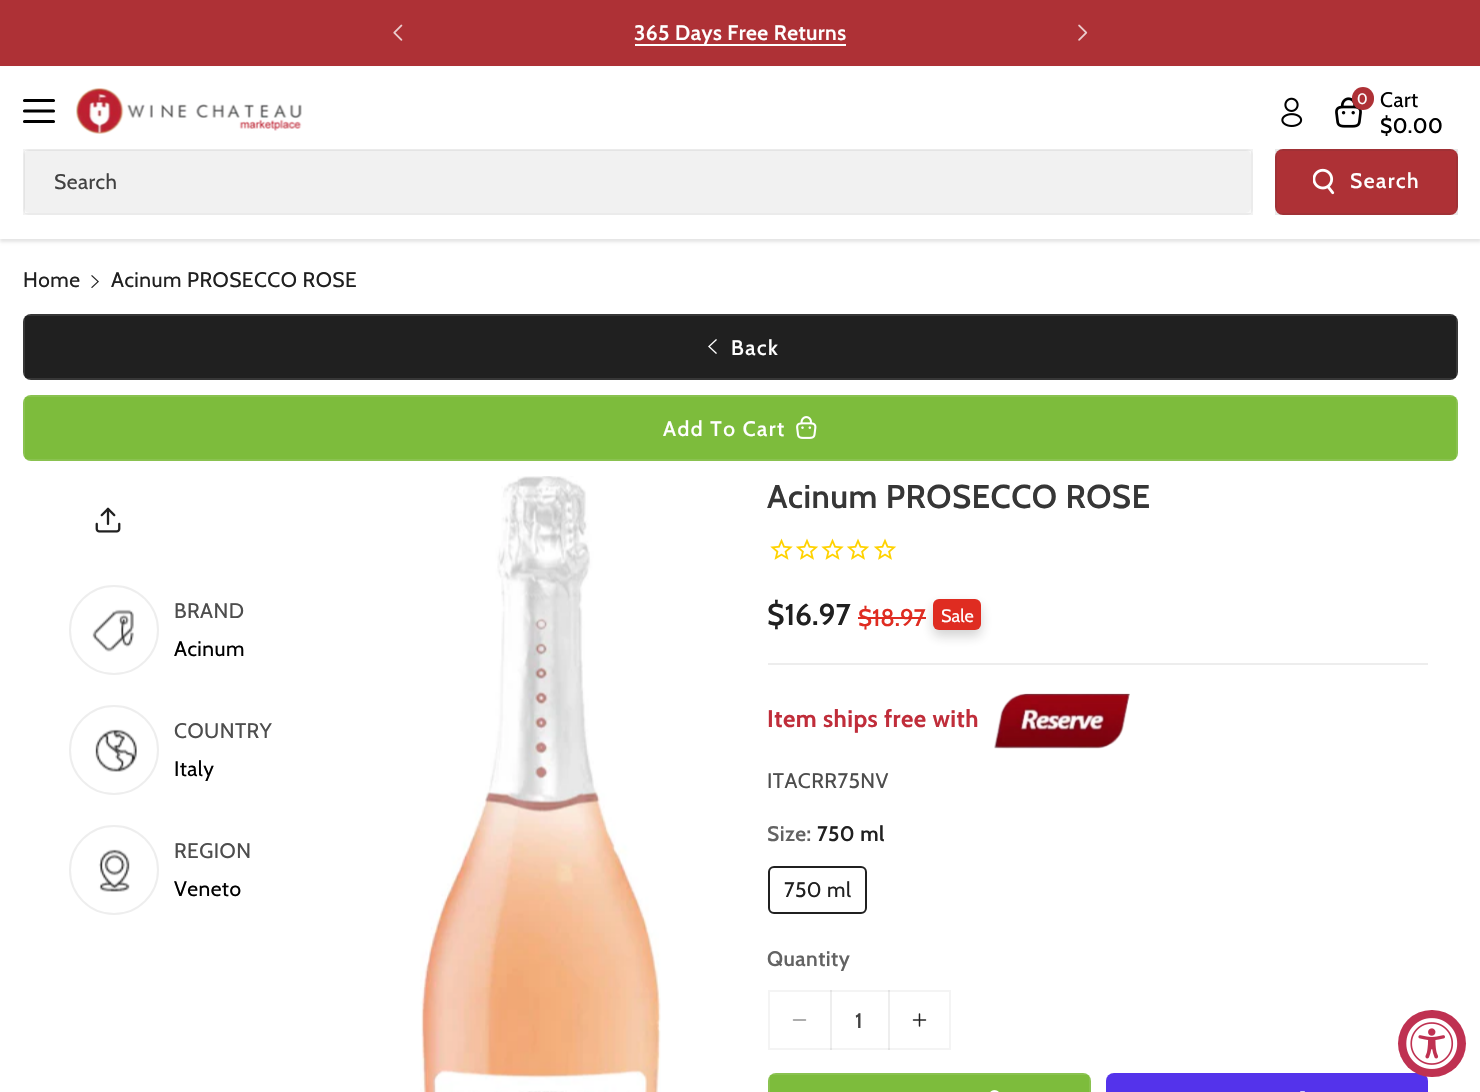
void draw(SkCanvas* c) {
SkPaint p;
p.setAntiAlias(true);
auto F=[&](const char* family, int weight, float size, bool italic = false){SkFontStyle style(weight, SkFontStyle::kNormal_Width,italic ? SkFontStyle::kItalic_Slant : SkFontStyle::kUpright_Slant);SkFont result(fontMgr->matchFamilyStyle(family, style), size);result.setSubpixel(true);return result;};
auto T=[&](const char* s, float x, float y, const SkFont& font){c->drawString(s, x, y, font, p);};
auto L=[&](const char* s, float x, float y, const SkFont& font, const SkPaint& ink, float letter, float word){std::vector<SkGlyphID> glyphs(font.countText(s, strlen(s), SkTextEncoding::kUTF8));std::vector<float> xs(glyphs.size());font.textToGlyphs(s, strlen(s), SkTextEncoding::kUTF8, glyphs);font.getXPos(glyphs, xs, x);float extra = 0;for (size_t i = 0; i < glyphs.size(); i++) {xs[i] += extra;extra += letter + word * (glyphs[i] == font.unicharToGlyph(' '));}c->drawTextBlob(SkTextBlob::MakeFromPosHGlyphs(glyphs, xs, y, font), 0, 0, ink);};
auto R=[&](float x, float y, float w, float h){c->drawRect(SkRect::MakeXYWH(x, y, w, h), p);};
auto Q=[&](float x, float y, float w, float h, float radius){c->drawRoundRect(SkRect::MakeXYWH(x, y, w, h), radius, radius, p);};
auto I=[&](const char* path, float x, float y, float w, float h){auto image = SkImages::DeferredFromEncodedData(SkData::MakeFromFileName(path));c->drawImageRect(image, SkRect::MakeXYWH(x, y, w, h), SkSamplingOptions());};
auto P=[&](const char* data, bool evenOdd = false){SkPath result = *SkParsePath::FromSVGString(data);if (evenOdd) result.setFillType(SkPathFillType::kEvenOdd);return result;};
c->clear(0xffffffff);
p.setColor(0xffae3136);
R(0,0,1480,66);
I("1.png",393,24,10,17);
p.setColor(0xffffffff);
R(635,44,211,2);
auto f1 = F("Cabin",600,21);
L("365 Days Free Returns",634,40,f1,p,.45,0);
I("2.png",1078,24,10,17);
p.setColor(0x1a000000);
p.setMaskFilter(SkMaskFilter::MakeBlur(kNormal_SkBlurStyle, 1.5));
c->drawRect(SkRect::MakeXYWH(0,69,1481,173),p);
p.setMaskFilter(nullptr);
p.setColor(0xffffffff);
R(0,67,1480,172);
p.setStroke(true);
p.setStrokeWidth(3.1);
p.setStrokeCap(SkPaint::kRound_Cap);
p.setStrokeJoin(SkPaint::kRound_Join);
p.setColor(0xff000000);
c->drawPath(P("M24.5 121.5h29m-29-10.5h29m-29-10.5h29"),p);
I("3.png",76,88,226,46);
I("4.png",1281,97,22,30);
I("5.png",1335,97,27,31);
p.setStroke(false);
p.setColor(0xffae3136);
Q(1352,87,22,23,11);
auto f2 = F("Cabin",400,15);
p.setColor(0xffffffff);
L("0",1357,104,f2,p,.45,0);
auto f3 = F("Cabin",400,21);
p.setColor(0xff000000);
L("Cart",1380,107,f3,p,.45,0);
auto f4 = F("Cabin",500,21);
L("$0.00",1380,133,f4,p,.45,0);
p.setColor(0xfff8f8f8);
Q(23,149,1230,66,6);
p.setColor(0xfff1f1f1);
Q(24,150,1227,63,6);
p.setStroke(true);
p.setStrokeWidth(2);
p.setStrokeCap(SkPaint::kButt_Cap);
p.setStrokeJoin(SkPaint::kMiter_Join);
p.setColor(0x0d000000);
c->drawRect(SkRect::MakeXYWH(24,150,1228,64),p);
p.setStroke(false);
p.setColor(0xff414141);
L("Search",54,189,f3,p,.45,0);
p.setColor(0xffae3136);
Q(1275,149,183,66,8);
I("6.png",1313,168,22,27);
p.setStroke(true);
p.setColor(0x0d202020);
c->drawRect(SkRect::MakeXYWH(1276,150,181,64),p);
c->drawRect(SkRect::MakeXYWH(1276,150,181,64),p);
p.setStroke(false);
p.setColor(0xffffffff);
L("Search",1350,188,f4,p,1.5,0);
p.setColor(0xff202020);
L("Home",23,287,f3,p,.45,0);
I("7.png",91,275,8,13);
L("Acinum PROSECCO ROSE",111,287,f3,p,.45,0);
Q(23,314,1435,66,8);
I("8.png",708,339,9,15);
p.setStroke(true);
p.setColor(0x0dffffff);
c->drawRect(SkRect::MakeXYWH(24,315,1433,64),p);
c->drawRect(SkRect::MakeXYWH(24,315,1433,64),p);
p.setStroke(false);
p.setColor(0xffffffff);
L("Back",731,355,f4,p,1.5,0);
p.setColor(0xff7dbc3c);
Q(23,395,1435,66,8);
I("9.png",796,416,21,23);
p.setStroke(true);
p.setColor(0x0dffffff);
c->drawRect(SkRect::MakeXYWH(24,396,1433,64),p);
c->drawRect(SkRect::MakeXYWH(24,396,1433,64),p);
p.setStroke(false);
p.setColor(0xffffffff);
L("Add To Cart",663,436,f4,p,1.5,0);
I("10.png",95,507,26,26);
p.setStroke(true);
p.setColor(0xffeeeeee);
c->drawCircle(114,630,44,p);
I("11.png",92,609,42,43);
p.setStroke(false);
p.setColor(0xff4d4d4d);
L("BRAND",174,618,f3,p,.45,0);
p.setColor(0xff000000);
L("Acinum",174,656,f3,p,.45,0);
p.setStroke(true);
p.setColor(0xffeeeeee);
c->drawCircle(114,750,44,p);
I("12.png",95,729,42,43);
p.setStroke(false);
p.setColor(0xff4d4d4d);
L("COUNTRY",174,738,f3,p,.45,0);
p.setColor(0xff000000);
L("Italy",174,776,f3,p,.45,0);
p.setStroke(true);
p.setColor(0xffeeeeee);
c->drawCircle(114,870,44,p);
I("13.png",98,849,32,43);
p.setStroke(false);
p.setColor(0xff4d4d4d);
L("REGION",174,858,f3,p,.45,0);
p.setColor(0xff000000);
L("Veneto",174,896,f3,p,.45,0);
I("14.png",420,476,241,616);
auto f5 = F("Cabin",600,33);
p.setColor(0xff363636);
L("Acinum PROSECCO ROSE",767,508,f5,p,.45,0);
I("15.png",770,538,23,22);
I("16.png",795,538,24,22);
I("15.png",821,538,23,22);
I("16.png",846,538,24,22);
I("16.png",873,538,24,22);
p.setColor(0xffededed);
R(768,663,660,2);
auto f6 = F("Cabin",600,30);
p.setColor(0xff202020);
T("$16.97",767,625,f6);
auto f7 = F("Cabin",500,24);
p.setColor(0xffdf2c21);
T("$18.97",858,626,f7);
R(858,617,68,2);
p.setColor(0x33202020);
p.setMaskFilter(SkMaskFilter::MakeBlur(kNormal_SkBlurStyle, 6));
c->drawRoundRect(SkRect::MakeXYWH(933,605,48,31),6,6,p);
p.setMaskFilter(nullptr);
p.setColor(0xffdf2c21);
Q(933,599,48,31,6);
auto f8 = F("Cabin",400,18);
p.setColor(0xffffffff);
T("Sale",941,622,f8);
auto f9 = F("Cabin",700,24);
p.setColor(0xffc02d3a);
L("Item ships free with",767,727,f9,p,.45,0);
I("17.png",994,693,136,56);
p.setColor(0xff4d4d4d);
L("ITACRR75NV",767,788,f3,p,.45,0);
p.setColor(0xff636363);
L("Size:",767,841,f1,p,.45,0);
p.setColor(0xff202020);
L("750 ml",817,841,f1,p,.45,0);
p.setStroke(true);
c->drawRoundRect(SkRect::MakeXYWH(769,867,97,46),5,5,p);
p.setStroke(false);
L("750 ml",784,897,f3,p,.45,0);
p.setColor(0xff636363);
L("Quantity",767,966,f1,p,.45,0);
I("18.png",792,1019,15,2);
p.setColor(0xffeeeeee);
R(888,990,2,60);
R(830,990,2,60);
I("19.png",912,1013,15,14);
p.setStroke(true);
p.setColor(0x0d202020);
c->drawRect(SkRect::MakeXYWH(769,991,181,58),p);
p.setStroke(false);
p.setColor(0xff414141);
T("1",855,1028,f4);
p.setColor(0xff7dbc3c);
Q(768,1073,323,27,8);
I("20.png",990,1090,9,2);
p.setStroke(true);
p.setColor(0x0dffffff);
c->drawRect(SkRect::MakeXYWH(769,1074,321,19),p);
c->drawRect(SkRect::MakeXYWH(769,1074,321,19),p);
p.setStroke(false);
p.setColor(0xff5433eb);
Q(1106,1073,322,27,8);
I("21.png",1300,1091,5,1);
p.setColor(0xffbf3151);
Q(1398,1010,68,67,33.5);
I("22.png",1406,1018,52,51);
}
